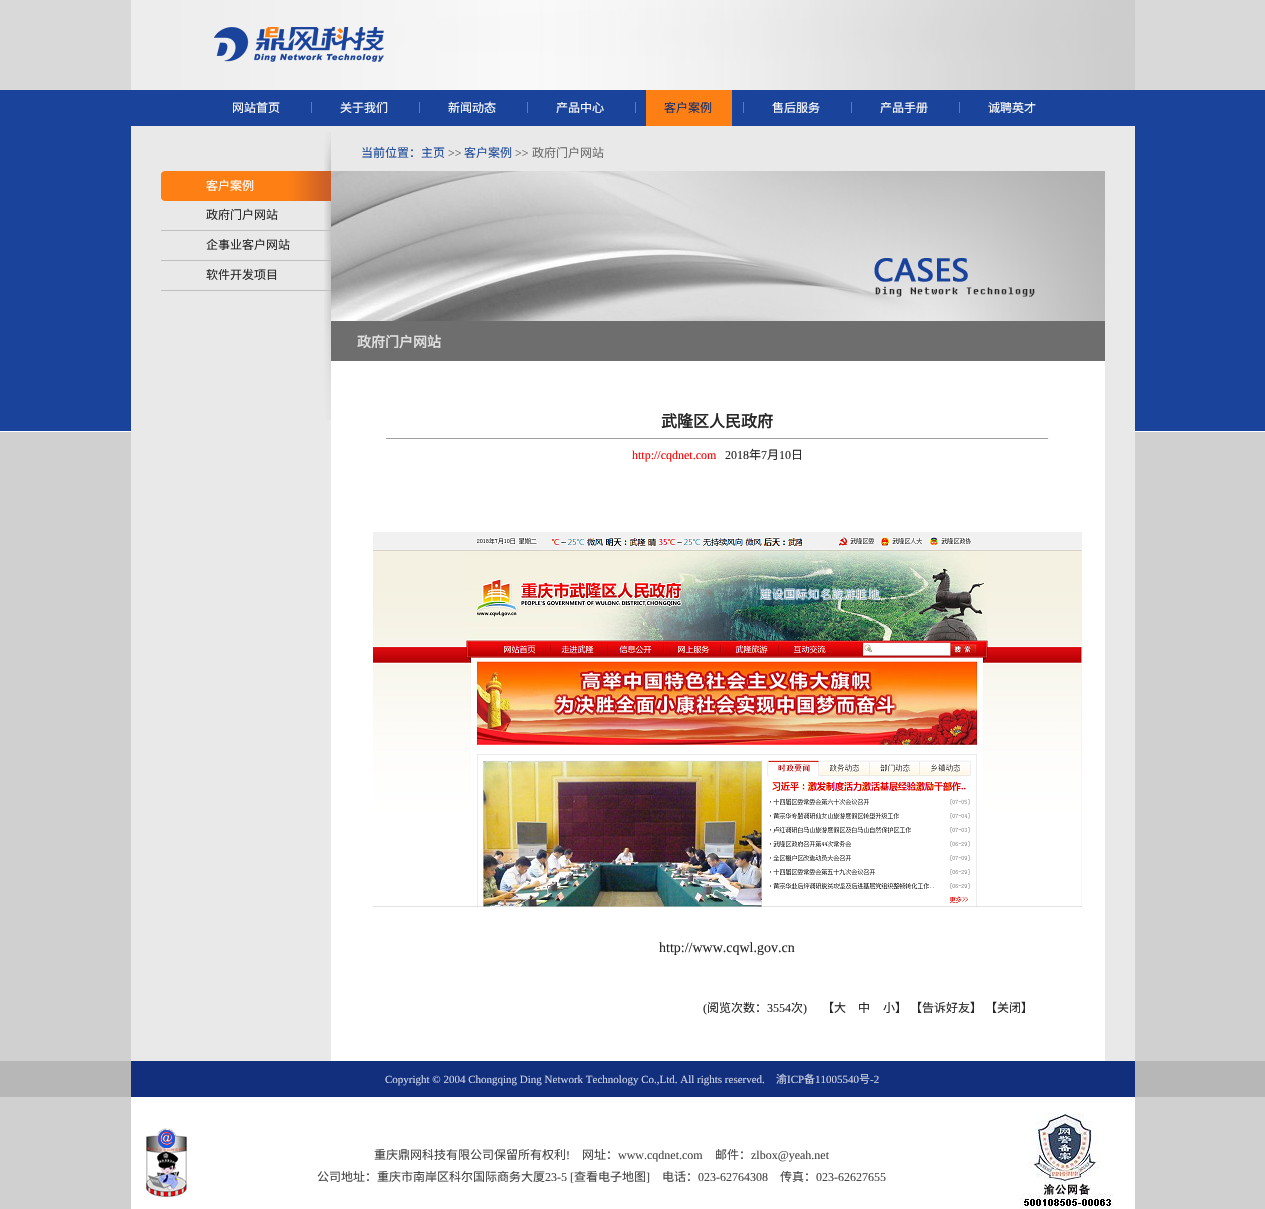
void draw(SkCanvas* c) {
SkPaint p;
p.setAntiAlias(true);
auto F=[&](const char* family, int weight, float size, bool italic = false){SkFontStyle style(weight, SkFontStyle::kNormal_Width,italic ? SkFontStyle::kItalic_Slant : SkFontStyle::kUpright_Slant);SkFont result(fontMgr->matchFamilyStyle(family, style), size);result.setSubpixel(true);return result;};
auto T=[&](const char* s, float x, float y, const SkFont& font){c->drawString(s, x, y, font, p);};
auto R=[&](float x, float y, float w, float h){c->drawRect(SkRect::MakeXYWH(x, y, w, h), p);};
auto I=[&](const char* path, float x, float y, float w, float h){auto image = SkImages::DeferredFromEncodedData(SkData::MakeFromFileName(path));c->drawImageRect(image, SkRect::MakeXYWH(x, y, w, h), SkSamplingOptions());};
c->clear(0xffd0d0d0);
I("1.png",0,0,1265,432);
I("2.png",131,0,1004,90);
I("3.png",214,27,170,35);
p.setColor(0xff5f7cb9);
R(311,102,1,11);
auto f1 = F("Noto Sans CJK SC",400,12);
p.setColor(0xffffffff);
T("网站首页",232,112,f1);
p.setColor(0xff5f7cb9);
R(419,102,1,11);
p.setColor(0xffffffff);
T("关于我们",340,112,f1);
p.setColor(0xff5f7cb9);
R(527,102,1,11);
p.setColor(0xffffffff);
T("新闻动态",448,112,f1);
p.setColor(0xff5f7cb9);
R(635,102,1,11);
p.setColor(0xffffffff);
T("产品中心",556,112,f1);
p.setColor(0xff5f7cb9);
R(743,102,1,11);
p.setColor(0xfffe7f14);
R(646,90,86,36);
p.setColor(0xff122f6f);
T("客户案例",664,112,f1);
p.setColor(0xff5f7cb9);
R(851,102,1,11);
p.setColor(0xffffffff);
T("售后服务",772,112,f1);
p.setColor(0xff5f7cb9);
R(959,102,1,11);
p.setColor(0xffffffff);
T("产品手册",880,112,f1);
T("诚聘英才",988,112,f1);
p.setColor(0xffe9e9e9);
R(131,126,1004,935);
I("4.png",324,132,7,288);
I("5.png",161,171,170,30);
p.setColor(0xffffffff);
T("客户案例",206,190,f1);
p.setColor(0xffbfbfbf);
R(161,230,170,1);
p.setColor(0xff272727);
T("政府门户网站",206,219,f1);
p.setColor(0xffbfbfbf);
R(161,260,170,1);
p.setColor(0xff272727);
T("企事业客户网站",206,249,f1);
p.setColor(0xffbfbfbf);
R(161,290,170,1);
p.setColor(0xff272727);
T("软件开发项目",206,279,f1);
p.setColor(0xff204c99);
T("当前位置：主页",361,157,f1);
auto f2 = F("Liberation Serif",400,12);
p.setColor(0xff6c6c6c);
T(">>",448,157,f2);
p.setColor(0xff204c99);
T("客户案例",464,157,f1);
p.setColor(0xff6c6c6c);
T(">>",515,157,f2);
T("政府门户网站",532,157,f1);
I("6.png",331,171,774,150);
p.setColor(0xff6e6e6e);
R(331,321,774,40);
auto f3 = F("Noto Sans CJK SC",700,14);
p.setColor(0xffdfdfdf);
T("政府门户网站",357,347,f3);
p.setColor(0xffffffff);
R(331,361,774,700);
auto f4 = F("Noto Sans CJK SC",700,16);
p.setColor(0xff272727);
T("武隆区人民政府",661,427,f4);
p.setColor(0xff9f9f9f);
R(386,438,663,1);
p.setColor(0xffeeeeee);
R(1048,438,1,1);
p.setColor(0xffff0000);
T("http://cqdnet.com",632,459,f2);
p.setColor(0xff272727);
T("2018",725,459,f2);
T("年",749,459,f1);
T("7",761,459,f2);
T("月",767,459,f1);
T("10",779,459,f2);
T("日",791,459,f1);
I("7.png",373,532,709,375);
auto f5 = F("Liberation Serif",400,14);
T("http://www.cqwl.gov.cn",659,952,f5);
T("(",703,1012,f2);
T("阅览次数：",707,1012,f1);
T("3554",767,1012,f2);
T("次",791,1012,f1);
T(")",803,1012,f2);
T("【大",822,1012,f1);
T("中",858,1012,f1);
T("小】",883,1012,f1);
T("【告诉好友】",910,1012,f1);
T("【关闭】",985,1012,f1);
p.setColor(0xffb7b7b7);
R(0,1061,1265,36);
p.setColor(0xff122f7e);
R(131,1061,1004,36);
auto f6 = F("Liberation Serif",400,11);
p.setColor(0xffd0d5e5);
T("Copyright © 2004 Chongqing Ding Network Technology Co.,Ltd. All rights reserved.",385,1083,f6);
auto f7 = F("Noto Sans CJK SC",400,11);
T("渝",776,1083,f7);
T("ICP",787,1083,f6);
T("备",804,1083,f7);
T("11005540",815,1083,f6);
T("号",859,1083,f7);
T("-2",870,1083,f6);
p.setColor(0xffffffff);
R(131,1097,1004,112);
I("8.png",146,1128,41,70);
p.setColor(0xff464646);
T("重庆鼎网科技有限公司保留所有权利",374,1159,f1);
T("!",566,1159,f2);
T("网址：",582,1159,f1);
T("www.cqdnet.com",618,1159,f2);
T("邮件：",715,1159,f1);
T("zlbox@yeah.net",751,1159,f2);
T("公司地址：重庆市南岸区科尔国际商务大厦",317,1181,f1);
T("23-5 [",545,1181,f2);
T("查看电子地图",574,1181,f1);
T("]",646,1181,f2);
T("电话：",662,1181,f1);
T("023-62764308",698,1181,f2);
T("传真：",780,1181,f1);
T("023-62627655",816,1181,f2);
I("9.png",1020,1113,94,96);
}
